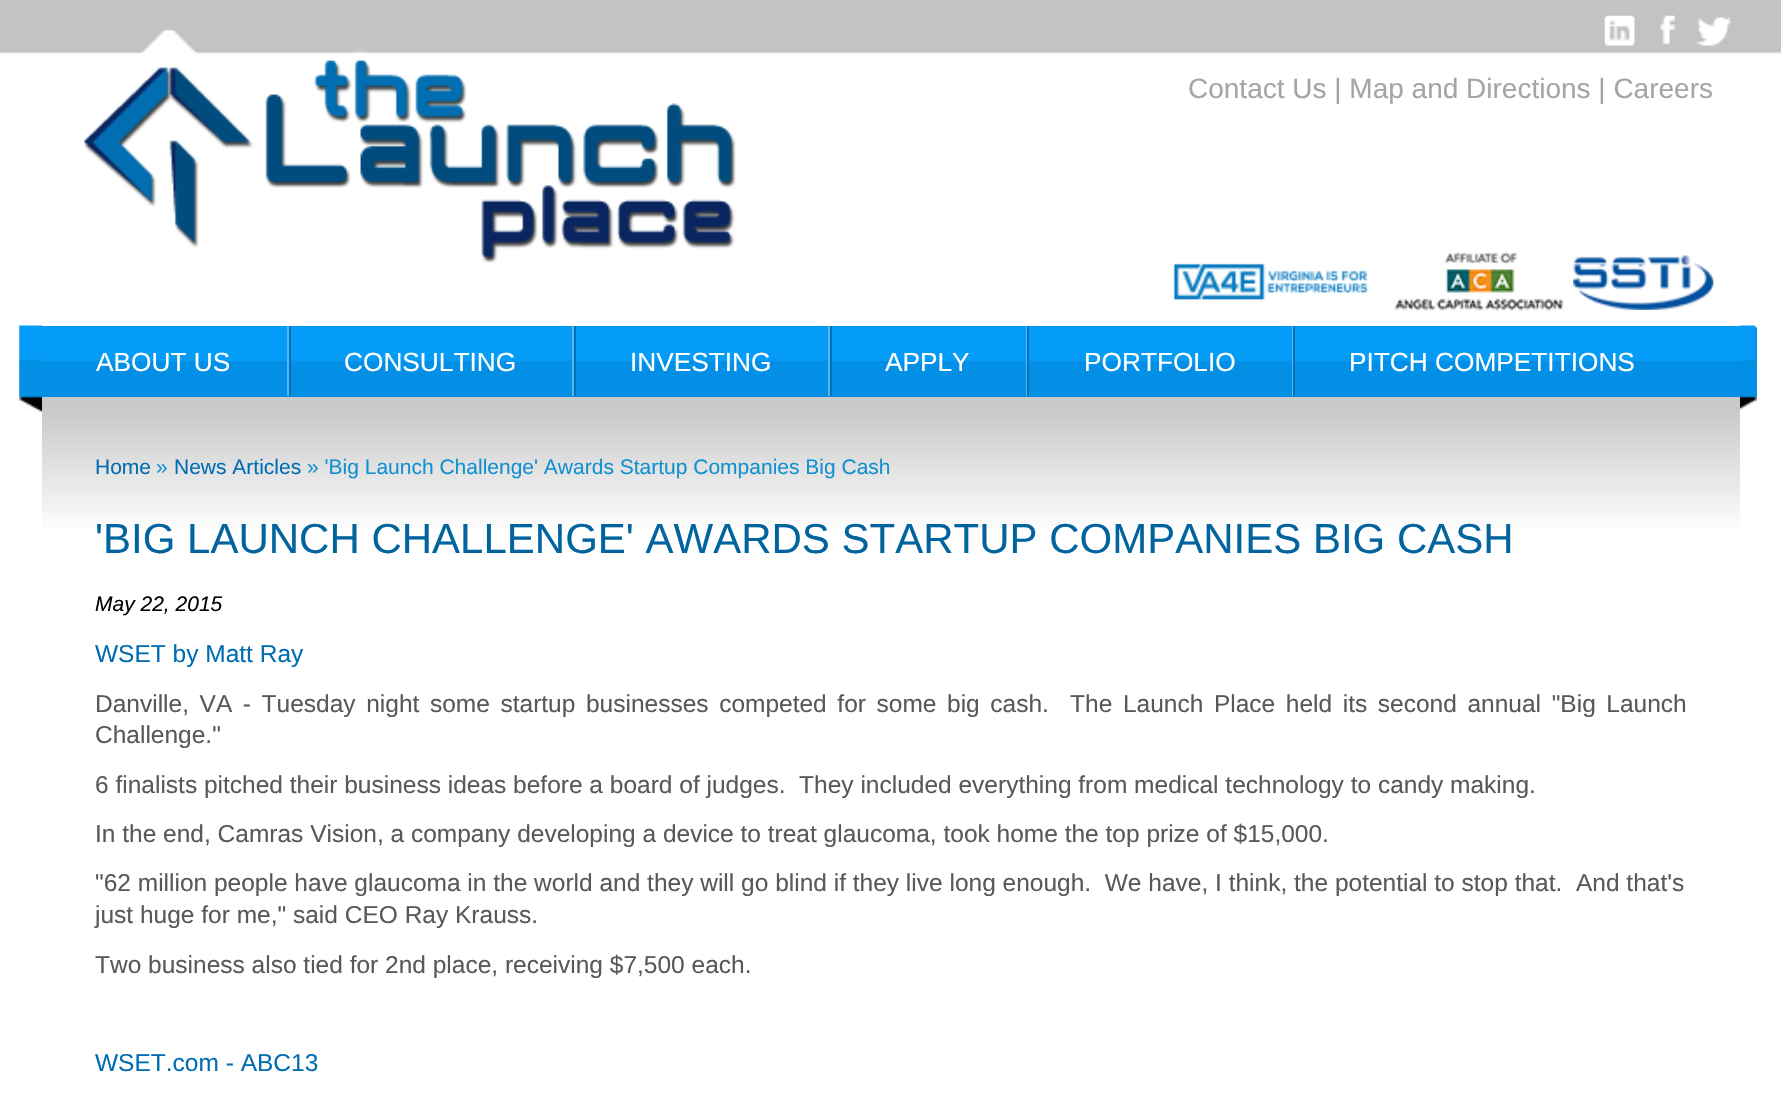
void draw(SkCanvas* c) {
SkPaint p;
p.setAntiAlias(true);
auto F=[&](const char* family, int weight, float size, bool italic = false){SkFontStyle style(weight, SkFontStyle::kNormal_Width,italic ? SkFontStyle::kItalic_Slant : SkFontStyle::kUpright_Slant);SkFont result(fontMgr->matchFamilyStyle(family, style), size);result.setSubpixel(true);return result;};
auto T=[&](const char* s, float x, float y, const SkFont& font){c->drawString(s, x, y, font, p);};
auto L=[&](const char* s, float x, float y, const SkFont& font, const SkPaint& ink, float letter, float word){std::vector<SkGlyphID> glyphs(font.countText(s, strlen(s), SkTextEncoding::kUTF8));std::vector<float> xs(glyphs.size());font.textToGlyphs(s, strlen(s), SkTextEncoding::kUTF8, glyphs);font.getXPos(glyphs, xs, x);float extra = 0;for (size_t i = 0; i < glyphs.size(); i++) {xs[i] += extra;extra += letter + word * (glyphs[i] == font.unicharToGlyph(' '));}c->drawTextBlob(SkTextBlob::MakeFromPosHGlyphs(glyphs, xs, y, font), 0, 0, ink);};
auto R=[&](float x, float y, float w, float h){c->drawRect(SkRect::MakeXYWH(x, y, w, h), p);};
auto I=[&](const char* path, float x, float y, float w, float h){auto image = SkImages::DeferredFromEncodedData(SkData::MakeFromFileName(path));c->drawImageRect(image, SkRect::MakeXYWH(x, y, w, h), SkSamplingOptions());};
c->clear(0xffffffff);
I("1.png",0,0,1781,55);
I("2.png",84,27,652,236);
I("3.png",1604,15,31,31);
I("4.png",1660,15,16,30);
I("5.png",1697,17,34,29);
auto f1 = F("Liberation Sans",400,28);
p.setColor(0xffa5a5a5);
T("Contact Us | Map and Directions | Careers",1188,98,f1);
I("6.png",1173,263,195,37);
I("7.png",1394,251,170,60);
I("8.png",1573,255,141,55);
I("9.png",19,325,23,87);
I("10.png",1739,325,18,85);
p.setColor(0xff059cf7);
R(42,326,1698,35);
p.setColor(0xff038fe6);
R(42,361,1698,36);
p.setColor(0xffcac9c9);
R(42,397,1698,14);
p.setColor(0xff53b6f8);
R(287,326,2,70);
auto f2 = F("Liberation Sans",400,26.25);
p.setColor(0xffffffff);
T("ABOUT US",96,371,f2);
p.setColor(0xff53b6f8);
R(572,326,2,70);
p.setColor(0xff0371b6);
R(289,326,2,70);
p.setColor(0xffffffff);
T("CONSULTING",344,371,f2);
p.setColor(0xff53b6f8);
R(828,326,2,70);
p.setColor(0xff0371b6);
R(574,326,2,70);
p.setColor(0xffffffff);
T("INVESTING",630,371,f2);
p.setColor(0xff53b6f8);
R(1026,326,1,70);
p.setColor(0xff0371b6);
R(830,326,2,70);
p.setColor(0xffffffff);
T("APPLY",885,371,f2);
p.setColor(0xff53b6f8);
R(1292,326,1,70);
p.setColor(0xff0371b6);
R(1027,326,2,70);
p.setColor(0xffffffff);
T("PORTFOLIO",1084,371,f2);
p.setColor(0xff0371b6);
R(1293,326,2,70);
p.setColor(0xffffffff);
T("PITCH COMPETITIONS",1349,371,f2);
{
const SkColor colors[] = {0xffcac9c9,0xffffffff};
const float stops[] = {0,.14};
const SkPoint ends[] = {{891,411}, {891,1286}};
p.setShader(SkGradientShader::MakeLinear(ends, colors, stops, 2, SkTileMode::kClamp));
p.setAlpha(255);
}
R(42,411,1698,117);
auto f3 = F("Liberation Sans",400,21);
p.setShader(nullptr);
p.setColor(0xff006eb1);
T("Home",95,474,f3);
p.setColor(0xff1191d0);
T("»",156,474,f3);
p.setColor(0xff006eb1);
T("News Articles",174,474,f3);
p.setColor(0xff1191d0);
T("» 'Big Launch Challenge' Awards Startup Companies Big Cash",307,474,f3);
auto f4 = F("Liberation Sans",400,42);
p.setColor(0xff02649f);
T("'BIG LAUNCH CHALLENGE' AWARDS STARTUP COMPANIES BIG CASH",95,553,f4);
auto f5 = F("Liberation Sans",400,21,true);
p.setColor(0xff000000);
T("May 22, 2015",95,611,f5);
auto f6 = F("Liberation Sans",400,24.5);
p.setColor(0xff006eb1);
T("WSET by Matt Ray",95,662,f6);
p.setColor(0xff595959);
L("Danville, VA - Tuesday night some startup businesses competed for some big cash.  The Launch Place held its second annual \"Big Launch",95,712,f6,p,0,3.8);
T("Challenge.\"",95,743,f6);
T("6 finalists pitched their business ideas before a board of judges.  They included everything from medical technology to candy making.",95,793,f6);
T("In the end, Camras Vision, a company developing a device to treat glaucoma, took home the top prize of $15,000.",95,842,f6);
T("\"62 million people have glaucoma in the world and they will go blind if they live long enough.  We have, I think, the potential to stop that.  And that's",95,891,f6);
T("just huge for me,\" said CEO Ray Krauss.",95,923,f6);
T("Two business also tied for 2nd place, receiving $7,500 each.",95,973,f6);
p.setColor(0xff006eb1);
T("WSET.com - ABC13",95,1071,f6);
}
